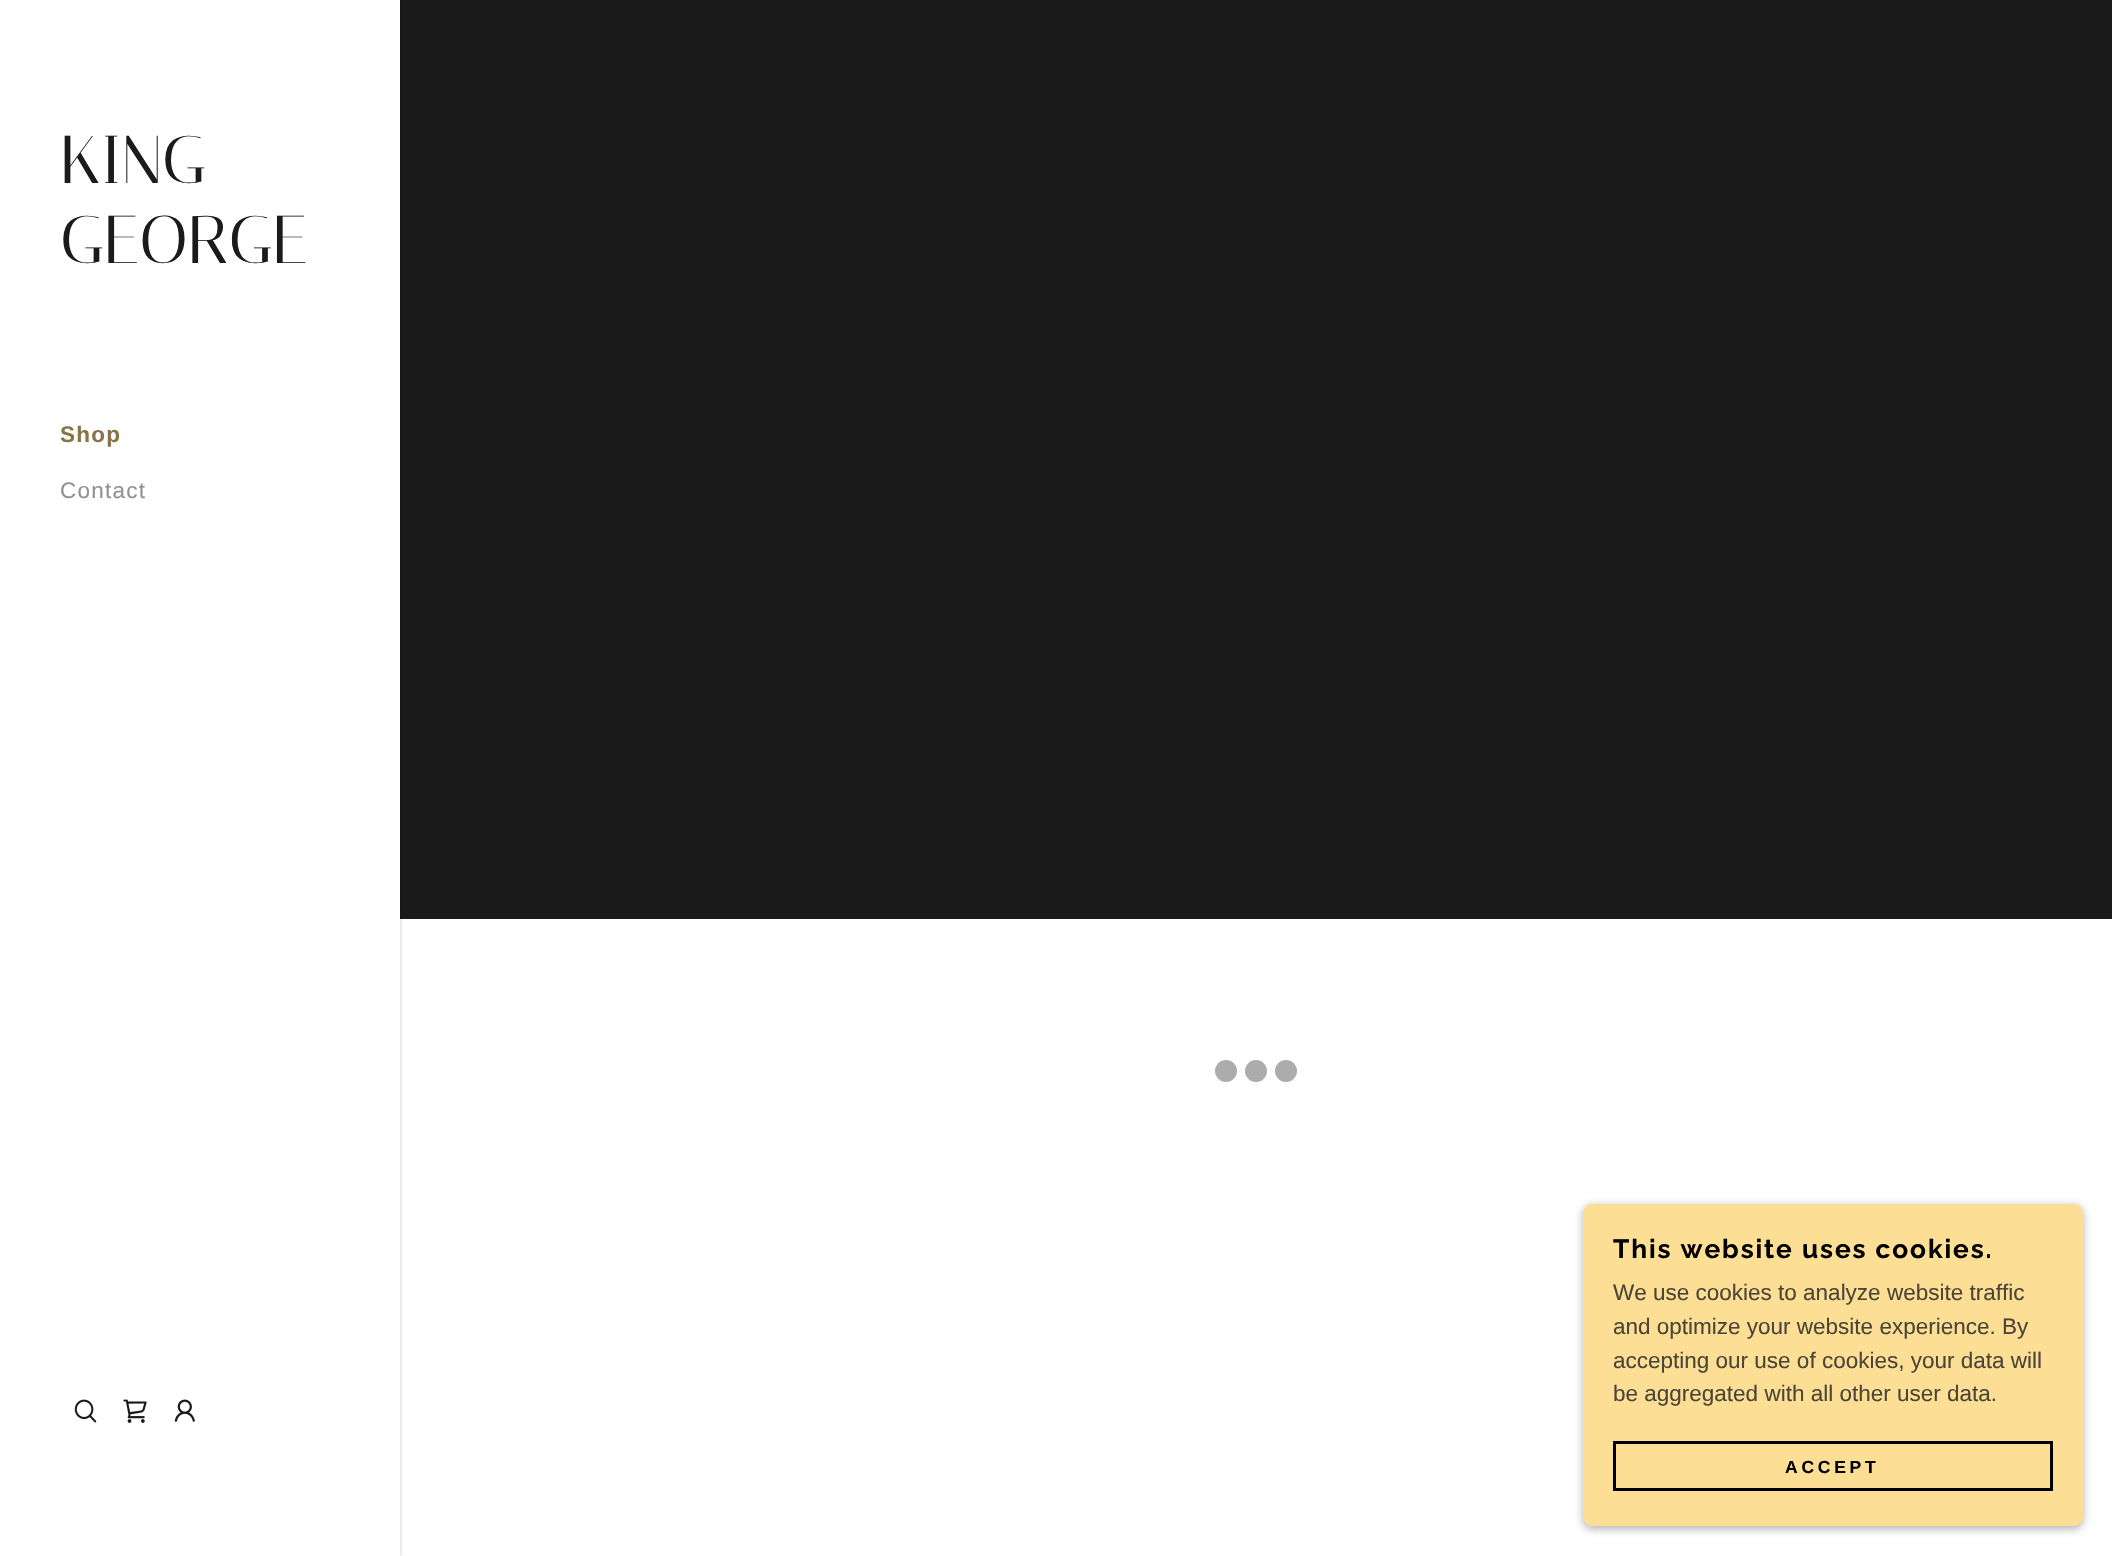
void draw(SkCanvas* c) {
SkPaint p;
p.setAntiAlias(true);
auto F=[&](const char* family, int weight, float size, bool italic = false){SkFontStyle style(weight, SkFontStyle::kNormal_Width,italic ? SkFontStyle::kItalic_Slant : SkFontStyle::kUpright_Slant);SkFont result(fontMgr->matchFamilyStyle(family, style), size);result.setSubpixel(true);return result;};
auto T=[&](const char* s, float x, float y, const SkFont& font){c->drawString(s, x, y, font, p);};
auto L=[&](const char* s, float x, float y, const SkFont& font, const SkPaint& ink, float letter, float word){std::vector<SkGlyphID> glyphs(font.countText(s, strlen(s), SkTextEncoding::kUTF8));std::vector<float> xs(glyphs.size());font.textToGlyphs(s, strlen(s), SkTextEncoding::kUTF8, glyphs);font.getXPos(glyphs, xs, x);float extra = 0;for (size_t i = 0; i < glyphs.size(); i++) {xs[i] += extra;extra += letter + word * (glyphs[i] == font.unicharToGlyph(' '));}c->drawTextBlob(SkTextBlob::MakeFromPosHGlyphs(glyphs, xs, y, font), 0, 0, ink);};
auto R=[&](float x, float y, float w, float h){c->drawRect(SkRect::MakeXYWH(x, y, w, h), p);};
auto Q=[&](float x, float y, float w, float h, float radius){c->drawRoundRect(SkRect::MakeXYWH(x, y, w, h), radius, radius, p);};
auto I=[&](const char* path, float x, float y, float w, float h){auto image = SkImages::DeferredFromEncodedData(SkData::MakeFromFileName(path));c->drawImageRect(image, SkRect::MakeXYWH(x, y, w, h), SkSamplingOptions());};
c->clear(0xffffffff);
p.setColor(0xff1a1a1a);
R(400,0,1712,919);
c->save();
c->clipRect(SkRect::MakeXYWH(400,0,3,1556));
p.setColor(0x33000000);
p.setMaskFilter(SkMaskFilter::MakeBlur(kNormal_SkBlurStyle, 2.5));
c->drawRect(SkRect::MakeXYWH(0,0,400,1556),p);
p.setMaskFilter(nullptr);
c->restore();
auto f1 = F("Italiana",400,67.5);
p.setColor(0xff1b1b1b);
T("KING",60,183,f1);
T("GEORGE",60,263,f1);
auto f2 = F("Liberation Sans",700,22.5);
p.setColor(0xff877448);
L("Shop",60,442,f2,p,1.25,0);
auto f3 = F("Liberation Sans",400,22.5);
p.setColor(0xff919191);
L("Contact",60,498,f3,p,1.25,0);
I("1.png",74,1399,23,24);
I("2.png",123,1399,24,24);
I("3.png",174,1399,21,23);
p.setColor(0xffacacac);
c->drawCircle(1226,1071,11,p);
c->drawCircle(1256,1071,11,p);
c->drawCircle(1286,1071,11,p);
p.setColor(0x4d000000);
p.setMaskFilter(SkMaskFilter::MakeBlur(kNormal_SkBlurStyle, 4));
c->drawRoundRect(SkRect::MakeXYWH(1583,1206,500,323),9,9,p);
p.setMaskFilter(nullptr);
p.setColor(0xfffdde95);
Q(1583,1204,500,322,9);
auto f4 = F("Raleway",700,26.25);
p.setColor(0xff000000);
L("This website uses cookies.",1613,1258,f4,p,1.9,0);
p.setColor(0xff4b4538);
T("We use cookies to analyze website traffic",1613,1300,f3);
T("and optimize your website experience. By",1613,1334,f3);
T("accepting our use of cookies, your data will",1613,1368,f3);
T("be aggregated with all other user data.",1613,1401,f3);
p.setStroke(true);
p.setStrokeWidth(3);
p.setColor(0xff000000);
c->drawRect(SkRect::MakeXYWH(1614.5,1442.5,437,47),p);
auto f5 = F("Liberation Sans",700,17.5);
p.setStroke(false);
L("ACCEPT",1785,1473,f5,p,3.75,0);
}
